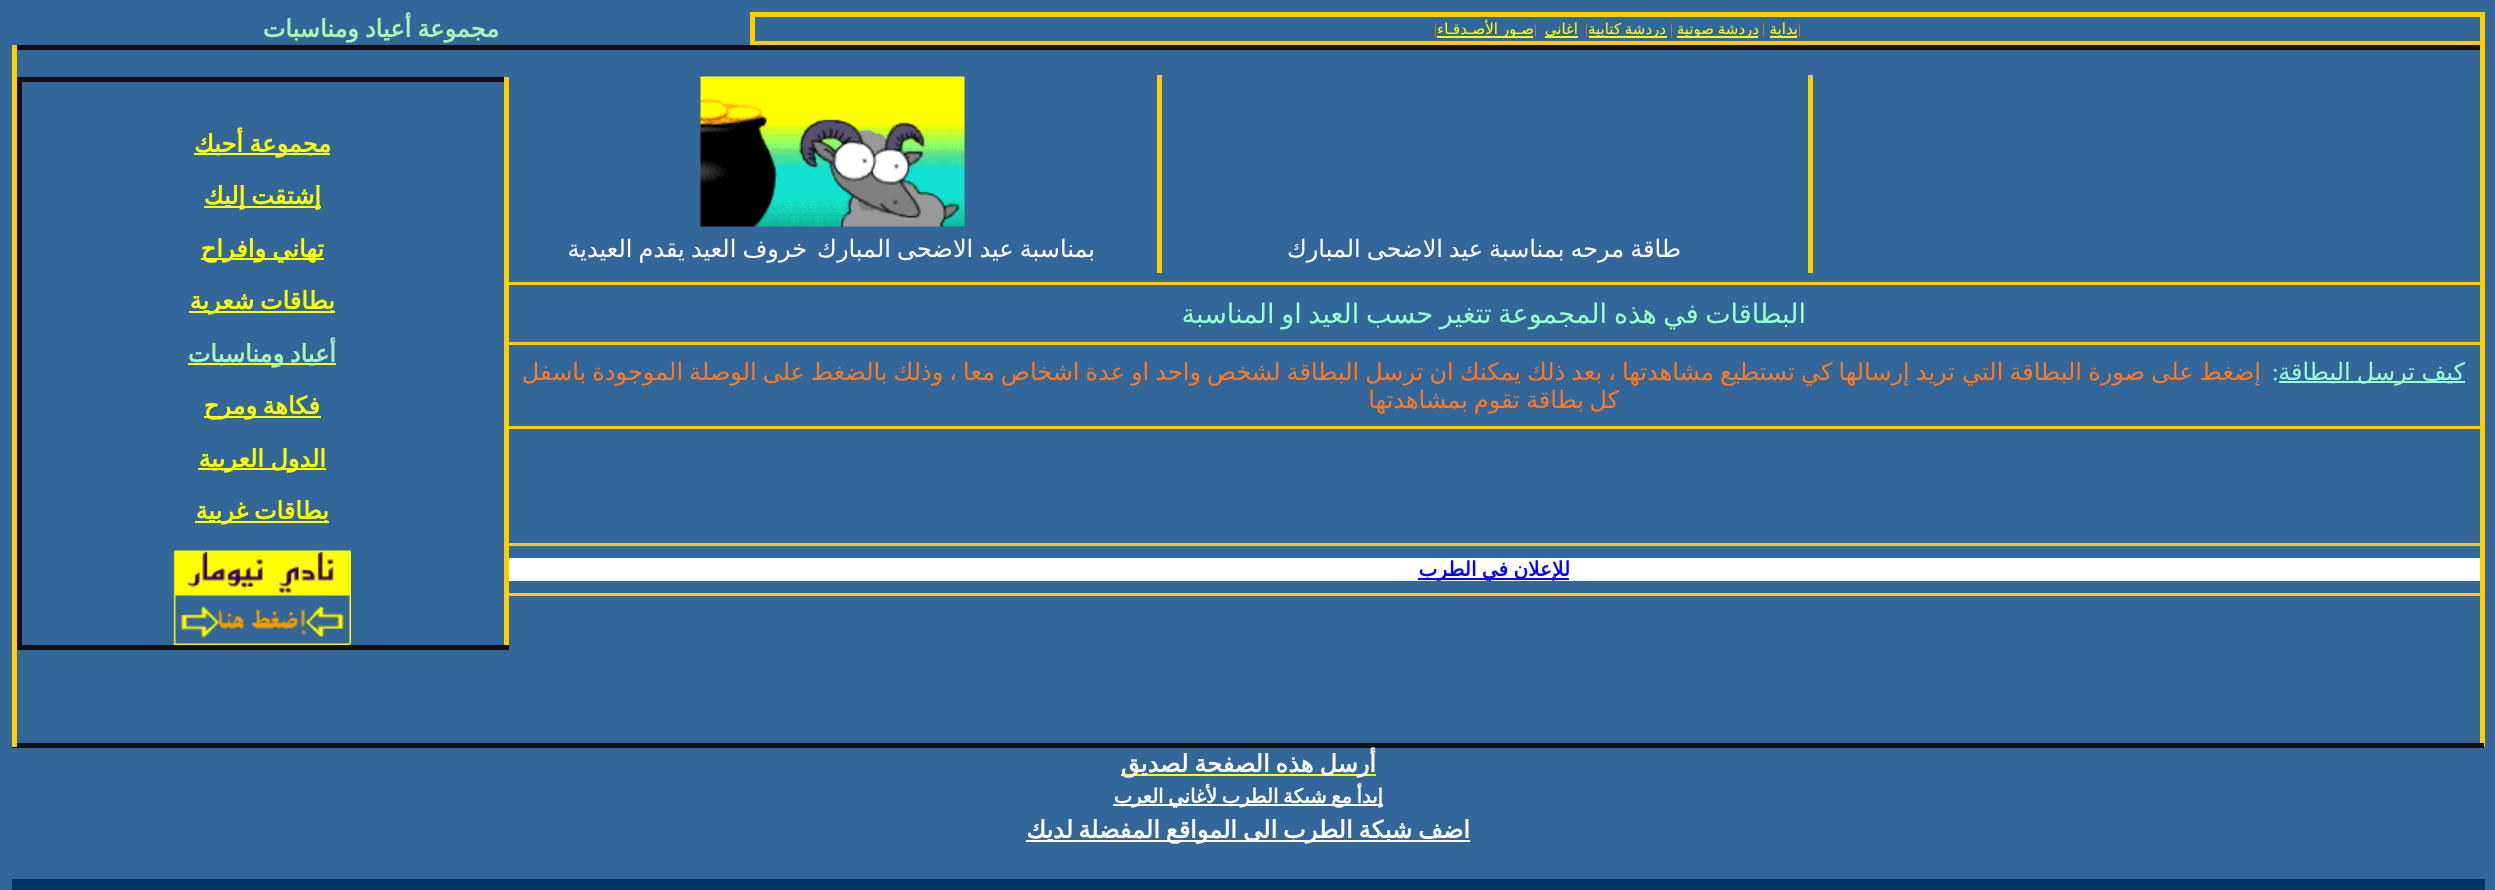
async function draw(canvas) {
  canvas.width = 2495
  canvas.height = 890
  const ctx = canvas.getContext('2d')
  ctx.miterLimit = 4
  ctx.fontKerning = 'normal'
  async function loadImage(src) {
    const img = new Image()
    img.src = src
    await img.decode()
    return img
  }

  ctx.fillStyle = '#369'
  ctx.fillRect(0, 0, 2495, 890)
  ctx.fillStyle = '#fc0'
  ctx.fillRect(750, 12, 1734, 5)
  ctx.fillRect(2480, 12, 5, 33)
  ctx.fillRect(750, 41, 1734, 4)
  ctx.fillRect(750, 12, 5, 33)
  ctx.font = '15px Liberation Serif'
  ctx.fillStyle = '#ff7920'
  ctx.fillText('|', 1798, 34)
  ctx.fillStyle = '#ff0'
  ctx.fillRect(1770, 36, 27, 2)
  ctx.direction = 'rtl'
  ctx.font = '15px DejaVu Sans'
  ctx.fillText('بداية', 1798, 34)
  ctx.direction = 'ltr'
  ctx.font = '15px Liberation Serif'
  ctx.fillStyle = '#ff7920'
  ctx.fillText('|', 1762, 34)
  ctx.fillStyle = '#ff0'
  ctx.fillRect(1677, 36, 81, 2)
  ctx.wordSpacing = '-1px'
  ctx.direction = 'rtl'
  ctx.font = '15px DejaVu Sans'
  ctx.fillText('دردشة صوتية', 1759, 34)
  ctx.wordSpacing = '0px'
  ctx.direction = 'ltr'
  ctx.font = '15px Liberation Serif'
  ctx.fillStyle = '#ff7920'
  ctx.fillText('|', 1670, 34)
  ctx.fillStyle = '#ff0'
  ctx.fillRect(1589, 36, 78, 2)
  ctx.wordSpacing = '-1px'
  ctx.direction = 'rtl'
  ctx.font = '15px DejaVu Sans'
  ctx.fillText('دردشة كتابية', 1666, 34)
  ctx.wordSpacing = '0px'
  ctx.direction = 'ltr'
  ctx.font = '15px Liberation Serif'
  ctx.fillStyle = '#ff7920'
  ctx.fillText('|', 1585, 34)
  ctx.fillStyle = '#ff0'
  ctx.fillRect(1545, 36, 33, 2)
  ctx.direction = 'rtl'
  ctx.font = '15px DejaVu Sans'
  ctx.fillText('اغاني', 1578, 34)
  ctx.direction = 'ltr'
  ctx.font = '15px Liberation Serif'
  ctx.fillStyle = '#ff7920'
  ctx.fillText('|', 1534, 34)
  ctx.fillStyle = '#ff0'
  ctx.fillRect(1437, 36, 96, 2)
  ctx.direction = 'rtl'
  ctx.font = '15px DejaVu Sans'
  ctx.fillText('صـور', 1534, 34)
  ctx.fillText('الأصـدقـاء', 1498, 34)
  ctx.direction = 'ltr'
  ctx.font = '15px Liberation Serif'
  ctx.fillStyle = '#ff7920'
  ctx.fillText('|', 1434, 34)
  ctx.wordSpacing = '-1.6px'
  ctx.direction = 'rtl'
  ctx.font = 'bold 24px DejaVu Sans'
  ctx.fillStyle = '#a7f6b7'
  ctx.fillText('مجموعة أعياد ومناسبات', 499, 37)
  ctx.fillStyle = '#111'
  ctx.fillRect(12, 45, 2472, 5)
  ctx.fillStyle = '#fc0'
  ctx.fillRect(2480, 45, 5, 702)
  ctx.fillStyle = '#111'
  ctx.fillRect(12, 743, 2472, 5)
  ctx.fillStyle = '#fc0'
  ctx.fillRect(12, 45, 5, 702)
  ctx.drawImage(await loadImage('image0.png'), 700, 76, 265, 151)
  ctx.fillRect(1808, 75, 5, 198)
  ctx.fillRect(1157, 75, 5, 198)
  ctx.font = '24px DejaVu Sans'
  ctx.fillStyle = '#fff'
  ctx.fillText('طاقة مرحه بمناسبة عيد', 1681, 257)
  ctx.fillText('الاضحى المبارك', 1443, 257)
  ctx.wordSpacing = '-1.5px'
  ctx.fillText('بمناسبة عيد الاضحى المبارك', 1095, 257)
  ctx.fillText('خروف العيد يقدم العيدية', 807, 257)
  ctx.fillStyle = '#fc0'
  ctx.fillRect(509, 282, 1971, 3)
  ctx.wordSpacing = '-2px'
  ctx.font = '27px DejaVu Sans'
  ctx.fillStyle = '#9fc'
  ctx.fillText('البطاقات في هذه', 1806, 323)
  ctx.fillText('المجموعة تتغير حسب العيد او المناسبة', 1607, 323)
  ctx.fillStyle = '#fc0'
  ctx.fillRect(509, 342, 1971, 3)
  ctx.fillStyle = '#9fc'
  ctx.fillRect(2279, 381, 186, 2)
  ctx.wordSpacing = '0px'
  ctx.font = '24px DejaVu Sans'
  ctx.fillText('كيف', 2465, 380)
  ctx.wordSpacing = '-1.6px'
  ctx.fillText('ترسل البطاقة', 2415, 380)
  ctx.wordSpacing = '0px'
  ctx.direction = 'ltr'
  ctx.font = '24px Liberation Serif'
  ctx.fillText(':', 2272, 380)
  ctx.wordSpacing = '-1.5px'
  ctx.direction = 'rtl'
  ctx.font = '24px DejaVu Sans'
  ctx.fillStyle = '#ff7920'
  ctx.fillText('إضغط على صورة البطاقة التي', 2261, 380)
  ctx.wordSpacing = '-1.6px'
  ctx.fillText('تريد إرسالها كي تستطيع مشاهدتها ، بعد ذلك يمكنك ان ترسل البطاقة لشخص', 1955, 380)
  ctx.fillText('واحد او عدة اشخاص معا ، وذلك بالضغط على الوصلة الموجودة باسفل', 1201, 380)
  ctx.wordSpacing = '0px'
  ctx.fillText('كل', 1619, 408)
  ctx.wordSpacing = '-1.6px'
  ctx.fillText('بطاقة تقوم بمشاهدتها', 1584, 408)
  ctx.fillStyle = '#fc0'
  ctx.fillRect(509, 426, 1971, 3)
  ctx.fillRect(509, 543, 1971, 3)
  ctx.fillStyle = '#fff'
  ctx.fillRect(509, 558, 1971, 23)
  ctx.fillStyle = '#00f'
  ctx.fillRect(1418, 578, 151, 2)
  ctx.wordSpacing = '-1px'
  ctx.font = 'bold 20px DejaVu Sans'
  ctx.fillText('للإعلان في الطرب', 1570, 576)
  ctx.fillStyle = '#fc0'
  ctx.fillRect(509, 593, 1971, 3)
  ctx.fillStyle = '#111'
  ctx.fillRect(17, 77, 492, 5)
  ctx.fillStyle = '#fc0'
  ctx.fillRect(504, 77, 5, 573)
  ctx.fillStyle = '#111'
  ctx.fillRect(17, 645, 492, 5)
  ctx.fillRect(17, 77, 5, 573)
  ctx.fillStyle = '#ff0'
  ctx.fillRect(194, 153, 136, 2)
  ctx.wordSpacing = '0px'
  ctx.font = 'bold 24px DejaVu Sans'
  ctx.fillText('مجموعة', 331, 152)
  ctx.fillText('أحبك', 243, 152)
  ctx.fillRect(204, 206, 117, 2)
  ctx.wordSpacing = '-1.6px'
  ctx.fillText('إشتقت إليك', 321, 204)
  ctx.fillRect(201, 258, 123, 2)
  ctx.wordSpacing = '0px'
  ctx.fillText('تهاني', 324, 257)
  ctx.fillText('وافراح', 266, 257)
  ctx.fillRect(189, 311, 146, 2)
  ctx.fillText('بطاقات', 335, 309)
  ctx.fillText('شعرية', 254, 309)
  ctx.fillRect(188, 363, 148, 2)
  ctx.fillStyle = '#a7f6b7'
  ctx.fillText('أعياد', 336, 362)
  ctx.fillText('ومناسبات', 284, 362)
  ctx.fillStyle = '#ff0'
  ctx.fillText('فكاهة', 320, 414)
  ctx.fillRect(204, 416, 117, 2)
  ctx.fillText('ومرح', 257, 414)
  ctx.fillRect(198, 468, 128, 2)
  ctx.fillText('الدول', 326, 467)
  ctx.fillText('العربية', 264, 467)
  ctx.fillRect(195, 521, 134, 2)
  ctx.fillText('بطاقات', 329, 519)
  ctx.fillText('غربية', 248, 519)
  ctx.drawImage(await loadImage('image1.png'), 172, 550, 179, 95)
  ctx.fillRect(1121, 774, 255, 2)
  ctx.wordSpacing = '-1.6px'
  ctx.fillStyle = '#fff'
  ctx.fillText('أرسل هذه الصفحة لصديق', 1376, 772)
  ctx.fillRect(1113, 804, 270, 2)
  ctx.wordSpacing = '0px'
  ctx.font = 'bold 19.5px DejaVu Sans'
  ctx.fillText('إبدأ', 1383, 803)
  ctx.wordSpacing = '-1.5px'
  ctx.fillText('مع شبكة الطرب لأغاني العرب', 1352, 803)
  ctx.fillRect(1026, 840, 444, 2)
  ctx.wordSpacing = '-1.6px'
  ctx.font = 'bold 24px DejaVu Sans'
  ctx.fillText('اضف شبكة الطرب الى المواقع المفضلة', 1470, 838)
  ctx.wordSpacing = '0px'
  ctx.fillText('لديك', 1073, 838)
  ctx.fillStyle = '#036'
  ctx.fillRect(14, 881, 2469, 9)
  ctx.fillRect(12, 879, 2472, 2)
  ctx.fillRect(2483, 879, 2, 11)
  ctx.fillRect(12, 879, 2, 11)
}

draw(document.querySelector('canvas'))
